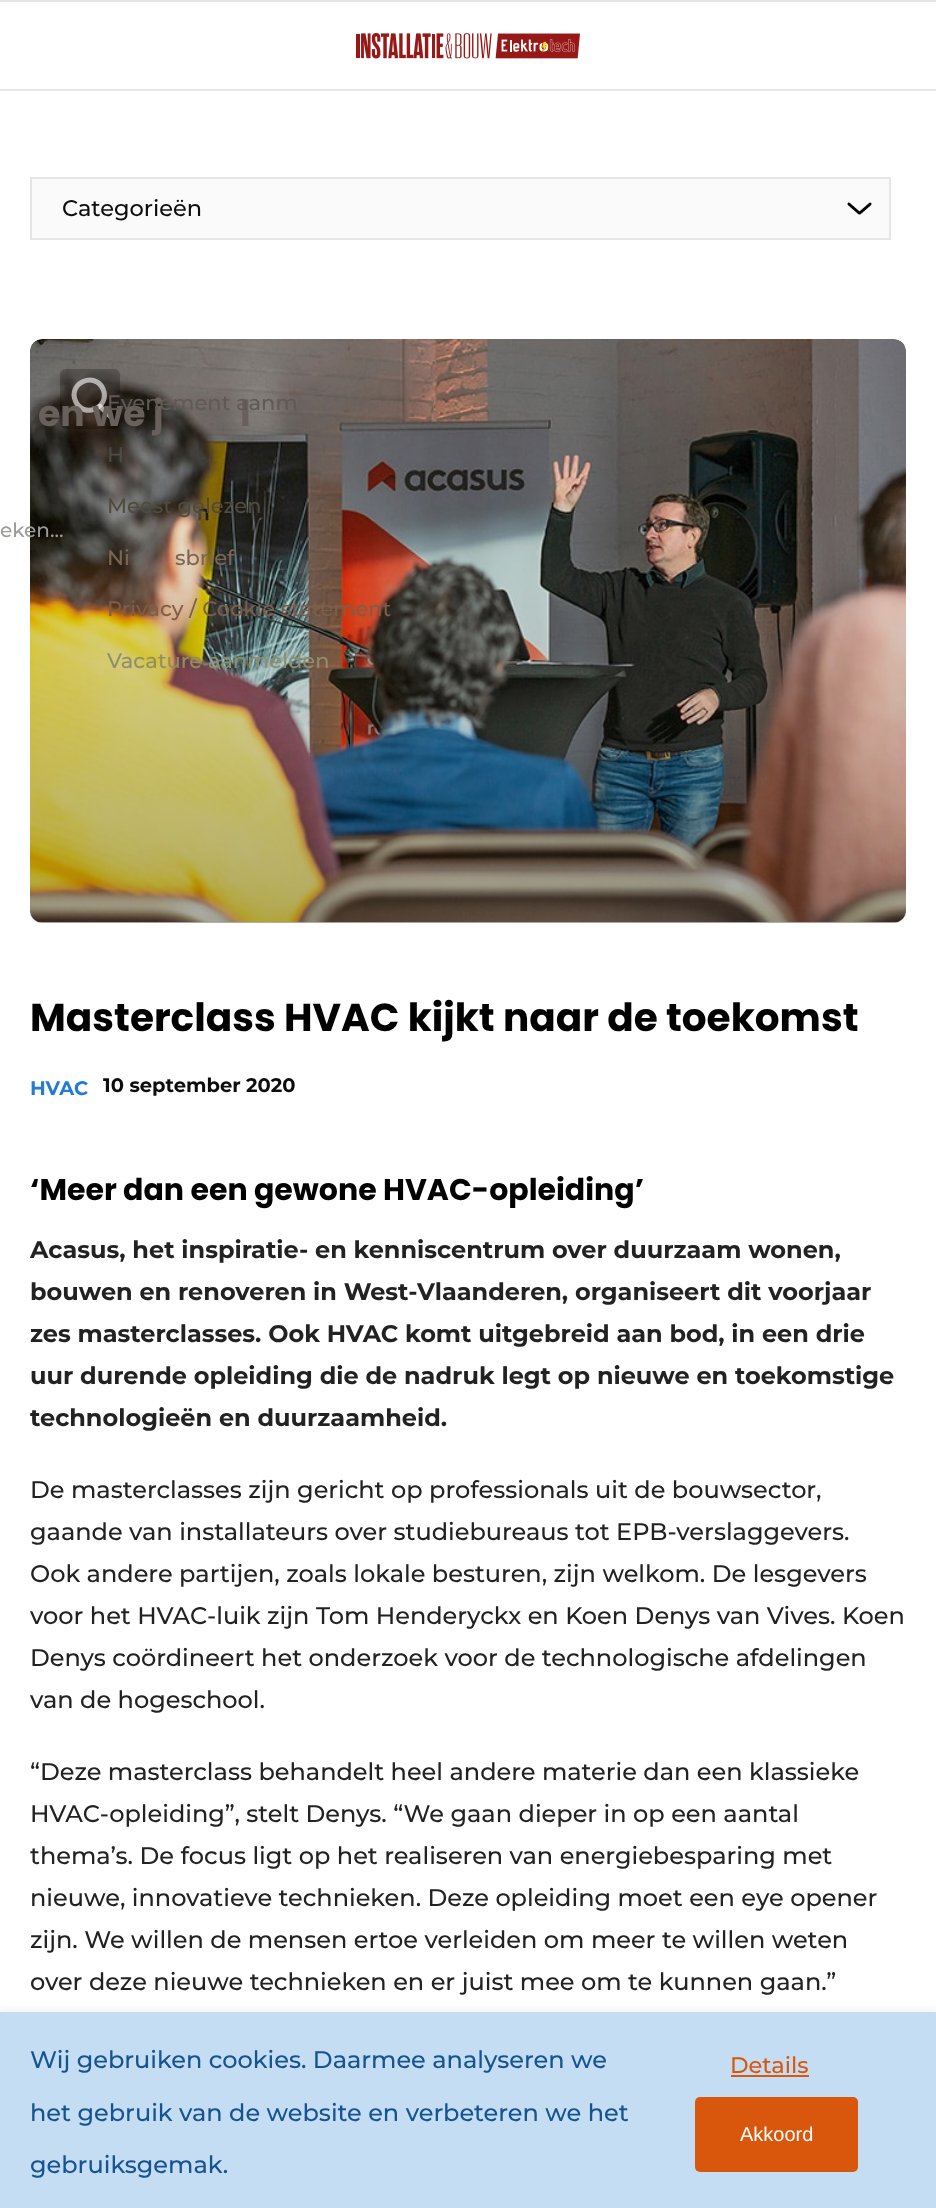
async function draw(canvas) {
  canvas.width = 936
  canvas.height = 2208
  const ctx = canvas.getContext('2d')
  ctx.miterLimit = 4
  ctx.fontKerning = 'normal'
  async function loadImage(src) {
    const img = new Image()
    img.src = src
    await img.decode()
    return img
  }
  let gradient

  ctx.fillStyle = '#fff'
  ctx.fillRect(0, 0, 936, 2208)
  ctx.fillStyle = '#fafafa'
  ctx.fillRect(32, 179, 857, 59)
  ctx.drawImage(await loadImage('image0.png'), 847, 202, 25, 13)
  ctx.strokeStyle = '#e6e6e6'
  ctx.lineWidth = 2
  ctx.strokeRect(31, 178, 859, 61)
  ctx.font = '500 22.5px Montserrat'
  ctx.fillStyle = '#0d0d0d'
  ctx.fillText('Categorieën', 62, 216)
  ctx.fillStyle = '#e6e6e6'
  ctx.fillRect(0, 0, 936, 2)
  ctx.drawImage(await loadImage('image1.png'), 356, 33, 224, 26)
  ctx.fillRect(0, 89, 936, 2)
  ctx.drawImage(await loadImage('image2.png'), 30, 339, 876, 584)
  gradient = ctx.createLinearGradient(468, 339, 468, 923)
  gradient.addColorStop(0, '#00000000')
  gradient.addColorStop(1, '#0000004d')
  ctx.fillStyle = gradient
  ctx.beginPath()
  ctx.roundRect(30, 339, 876, 584, 12)
  ctx.fill()
  ctx.fillStyle = '#0000003d'
  ctx.beginPath()
  ctx.roundRect(60, 369, 60, 60, 6)
  ctx.fill()
  ctx.beginPath()
  ctx.moveTo(75.5, 401)
  ctx.bezierCurveTo(83, 419.5, 111, 407.5, 103, 389)
  ctx.bezierCurveTo(95, 371, 67.5, 383, 75.5, 401)
  ctx.closePath()
  ctx.strokeStyle = '#ffffff99'
  ctx.lineWidth = 5.1
  ctx.lineCap = 'round'
  ctx.lineJoin = 'round'
  ctx.stroke()
  ctx.beginPath()
  ctx.moveTo(100, 406.5)
  ctx.lineTo(110.5, 416.5)
  ctx.stroke()
  ctx.font = 'bold 36px Poppins'
  ctx.fillStyle = '#69605b'
  ctx.fillText('en we j', 38, 426)
  ctx.fillText('l', 240, 426)
  ctx.font = '500 21px Montserrat'
  ctx.fillStyle = '#605955'
  ctx.fillText('Evenement aanm', 107, 410)
  ctx.fillStyle = '#4e4a47'
  ctx.fillText('H', 107, 462)
  ctx.fillStyle = '#514b3b'
  ctx.fillText('Meest gelezen', 107, 513)
  ctx.fillStyle = '#796754'
  ctx.fillText('Ni', 107, 565)
  ctx.fillText('sbrief', 175, 565)
  ctx.fillStyle = '#7e5e47'
  ctx.fillText('Privacy / Cookie statement', 107, 616)
  ctx.fillStyle = '#8f8e6a'
  ctx.fillText('Vacature aanmelden', 107, 668)
  ctx.font = '500 20px Montserrat'
  ctx.fillStyle = '#9c9b99'
  ctx.fillText('eken...', 0, 537)
  ctx.font = 'bold 39px Poppins'
  ctx.fillStyle = '#000'
  ctx.fillText('Masterclass HVAC kijkt naar de toekomst', 30, 1031)
  ctx.font = 'bold 19.5px Montserrat'
  ctx.fillStyle = '#227bd4'
  ctx.fillText('HVAC', 30, 1095)
  ctx.fillStyle = '#0d0d0d'
  ctx.fillText('10 september 2020', 103, 1092)
  ctx.font = 'bold 30px Poppins'
  ctx.fillStyle = '#000'
  ctx.fillText('‘Meer dan een gewone HVAC-opleiding’', 30, 1200)
  ctx.font = 'bold 24px Montserrat'
  ctx.fillStyle = '#222'
  ctx.fillText('Acasus, het inspiratie- en kenniscentrum over duurzaam wonen,', 30, 1258)
  ctx.fillText('bouwen en renoveren in West-Vlaanderen, organiseert dit voorjaar', 30, 1300)
  ctx.fillText('zes masterclasses. Ook HVAC komt uitgebreid aan bod, in een drie', 30, 1342)
  ctx.fillText('uur durende opleiding die de nadruk legt op nieuwe en toekomstige', 30, 1384)
  ctx.fillText('technologieën en duurzaamheid.', 30, 1426)
  ctx.font = '500 24px Montserrat'
  ctx.fillText('De masterclasses zijn gericht op professionals uit de bouwsector,', 30, 1498)
  ctx.fillText('gaande van installateurs over studiebureaus tot EPB-verslaggevers.', 30, 1540)
  ctx.fillText('Ook andere partijen, zoals lokale besturen, zijn welkom. De lesgevers', 30, 1582)
  ctx.fillText('voor het HVAC-luik zijn Tom Henderyckx en Koen Denys van Vives. Koen', 30, 1624)
  ctx.fillText('Denys coördineert het onderzoek voor de technologische afdelingen', 30, 1666)
  ctx.fillText('van de hogeschool.', 30, 1708)
  ctx.fillText('“Deze masterclass behandelt heel andere materie dan een klassieke', 30, 1780)
  ctx.fillText('HVAC-opleiding”, stelt Denys. “We gaan dieper in op een aantal', 30, 1822)
  ctx.fillText('thema’s. De focus ligt op het realiseren van energiebesparing met', 30, 1864)
  ctx.fillText('nieuwe, innovatieve technieken. Deze opleiding moet een eye opener', 30, 1906)
  ctx.fillText('zijn. We willen de mensen ertoe verleiden om meer te willen weten', 30, 1948)
  ctx.fillText('over deze nieuwe technieken en er juist mee om te kunnen gaan.”', 30, 1990)
  ctx.fillStyle = '#0000000f'
  ctx.filter = 'blur(4.5px)'
  ctx.beginPath()
  ctx.rect(-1, 2010, 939, 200)
  ctx.fill()
  ctx.filter = 'none'
  ctx.fillStyle = '#c4ddf2'
  ctx.fillRect(0, 2012, 936, 196)
  ctx.fillStyle = '#155391'
  ctx.fillText('Wij gebruiken cookies. Daarmee analyseren we', 30, 2068)
  ctx.fillText('het gebruik van de website en verbeteren we het', 30, 2121)
  ctx.fillText('gebruiksgemak.', 30, 2173)
  ctx.font = '500 22.5px Montserrat'
  ctx.fillStyle = '#d9570c'
  ctx.fillText('Details', 730, 2073)
  ctx.fillRect(731, 2075, 78, 2)
  ctx.beginPath()
  ctx.roundRect(695, 2097, 163, 75, 5)
  ctx.fill()
  ctx.font = '20px Liberation Sans'
  ctx.fillStyle = '#fff'
  ctx.fillText('Akkoord', 740, 2141)
}

draw(document.querySelector('canvas'))
